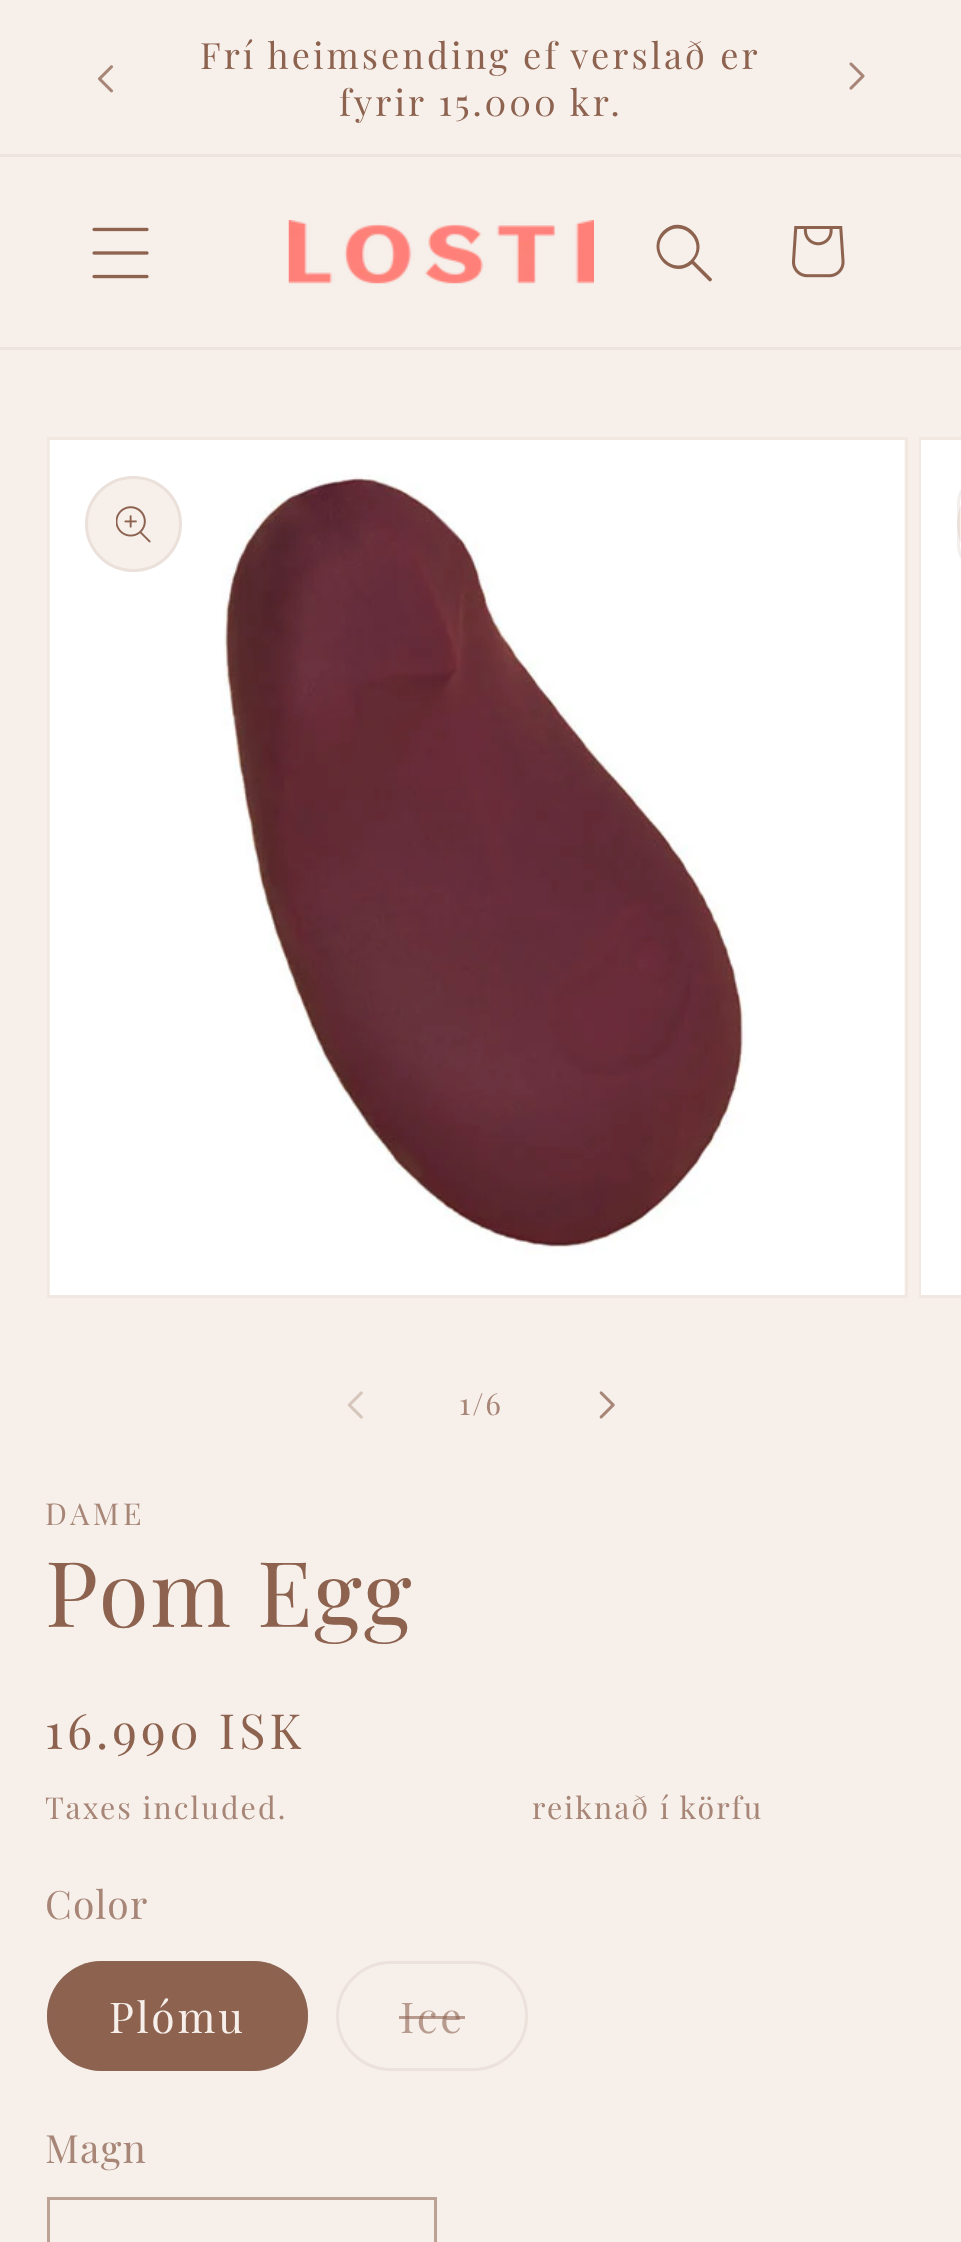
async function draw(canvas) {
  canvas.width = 961
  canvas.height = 2242
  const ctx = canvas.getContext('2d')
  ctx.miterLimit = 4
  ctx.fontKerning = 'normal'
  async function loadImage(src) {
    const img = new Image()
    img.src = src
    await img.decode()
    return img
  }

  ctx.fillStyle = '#f6efea'
  ctx.fillRect(0, 0, 961, 2242)
  ctx.fillStyle = '#eee4de'
  ctx.fillRect(0, 154, 961, 3)
  ctx.drawImage(await loadImage('image0.png'), 98, 65, 15, 28)
  ctx.letterSpacing = '3px'
  ctx.font = '36.25px Playfair Display'
  ctx.fillStyle = '#8d6350'
  ctx.fillText('Frí heimsending ef verslað er', 200, 69)
  ctx.fillText('fyrir 15.000 kr.', 339, 116)
  ctx.drawImage(await loadImage('image1.png'), 849, 62, 16, 28)
  ctx.fillStyle = '#eee4de'
  ctx.fillRect(0, 347, 961, 3)
  ctx.drawImage(await loadImage('image2.png'), 92, 227, 57, 52)
  ctx.drawImage(await loadImage('image3.png'), 288, 220, 306, 64)
  ctx.fillStyle = '#8d6350'
  ctx.beginPath()
  ctx.moveTo(691, 260)
  ctx.bezierCurveTo(674, 277, 648, 251, 665, 234)
  ctx.bezierCurveTo(682, 217, 708, 243, 691, 260)
  ctx.moveTo(692, 264)
  ctx.bezierCurveTo(671, 281, 644, 251, 663, 231)
  ctx.bezierCurveTo(683, 212, 712, 241, 694, 261)
  ctx.lineTo(712, 279)
  ctx.bezierCurveTo(712, 281, 710, 282, 709, 281)
  ctx.closePath()
  ctx.fill('evenodd')
  ctx.drawImage(await loadImage('image4.png'), 792, 226, 53, 52)
  ctx.strokeStyle = '#f1e8e2'
  ctx.lineWidth = 3
  ctx.strokeRect(48.5, 438.5, 858, 858)
  ctx.drawImage(await loadImage('image5.png'), 49, 440, 856, 855)
  ctx.fillStyle = '#f6efea'
  ctx.beginPath()
  ctx.roundRect(85, 476, 97, 96, 48)
  ctx.fill()
  ctx.beginPath()
  ctx.roundRect(86.5, 477.5, 94, 93, 46.5)
  ctx.strokeStyle = '#8d63501a'
  ctx.stroke()
  ctx.drawImage(await loadImage('image6.png'), 116, 506, 35, 37)
  ctx.strokeStyle = '#f1e8e2'
  ctx.strokeRect(920.5, 438.5, 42, 858)
  ctx.fillStyle = '#fff'
  ctx.fillRect(921, 440, 40, 855)
  ctx.fillStyle = '#f6efea'
  ctx.beginPath()
  ctx.moveTo(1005, 476)
  ctx.lineTo(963, 476)
  ctx.lineTo(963, 572)
  ctx.lineTo(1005, 572)
  ctx.bezierCurveTo(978.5, 572, 957, 550.5, 957, 524)
  ctx.bezierCurveTo(957, 497.5, 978.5, 476, 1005, 476)
  ctx.closePath()
  ctx.fill()
  ctx.beginPath()
  ctx.roundRect(958.5, 477.5, 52, 93, 46.5)
  ctx.strokeStyle = '#8d63501a'
  ctx.stroke()
  ctx.drawImage(await loadImage('image7.png'), 347, 1391, 16, 28)
  ctx.letterSpacing = '2.1px'
  ctx.font = '30.25px Playfair Display'
  ctx.fillStyle = '#a78677'
  ctx.fillText('1/6', 459, 1415)
  ctx.drawImage(await loadImage('image8.png'), 599, 1391, 16, 28)
  ctx.letterSpacing = '4px'
  ctx.fillText('DAME', 45, 1525)
  ctx.letterSpacing = '1.75px'
  ctx.font = '90.75px Playfair Display'
  ctx.fillStyle = '#8d6350'
  ctx.fillText('Pom Egg', 45, 1627)
  ctx.letterSpacing = '4px'
  ctx.font = '48.5px Playfair Display'
  ctx.fillText('16.990 ISK', 45, 1749)
  ctx.letterSpacing = '2.1px'
  ctx.font = '30.25px Playfair Display'
  ctx.fillStyle = '#a78677'
  ctx.fillText('Taxes included.', 45, 1819)
  ctx.fillText('reiknað í körfu', 532, 1819)
  ctx.letterSpacing = '1.25px'
  ctx.font = '39px Playfair Display'
  ctx.fillText('Color', 45, 1919)
  ctx.fillStyle = '#8d6350'
  ctx.beginPath()
  ctx.roundRect(47, 1961, 261, 110, 55)
  ctx.fill()
  ctx.beginPath()
  ctx.roundRect(48.5, 1962.5, 258, 107, 53.5)
  ctx.strokeStyle = '#8d63508c'
  ctx.stroke()
  ctx.letterSpacing = '3px'
  ctx.font = '42.5px Playfair Display'
  ctx.fillStyle = '#f6efea'
  ctx.fillText('Plómu', 109, 2033)
  ctx.beginPath()
  ctx.roundRect(337.5, 1962.5, 189, 107, 53.5)
  ctx.strokeStyle = '#ece1db'
  ctx.stroke()
  ctx.fillStyle = '#b79b8e'
  ctx.fillText('Ice', 400, 2033)
  ctx.fillStyle = '#8d635099'
  ctx.fillRect(399, 2016, 66, 3)
  ctx.letterSpacing = '1.25px'
  ctx.font = '39px Playfair Display'
  ctx.fillStyle = '#a78677'
  ctx.fillText('Magn', 45, 2163)
  ctx.strokeStyle = '#bca295'
  ctx.strokeRect(48.5, 2198.5, 387, 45)
}

draw(document.querySelector('canvas'))
